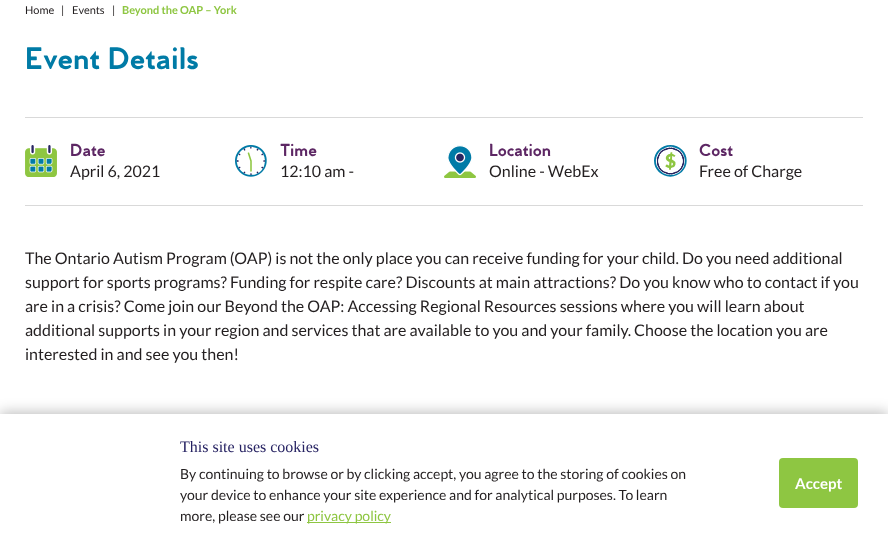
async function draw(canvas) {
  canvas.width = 888
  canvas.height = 551
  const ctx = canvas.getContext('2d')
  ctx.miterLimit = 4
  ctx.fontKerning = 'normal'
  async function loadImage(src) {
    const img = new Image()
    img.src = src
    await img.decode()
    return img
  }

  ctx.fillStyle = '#fff'
  ctx.fillRect(0, 0, 888, 551)
  ctx.font = '11px Lato'
  ctx.fillStyle = '#231f20'
  ctx.fillText('Home', 25, 14)
  ctx.fillText('|', 61, 14)
  ctx.fillText('Events', 72, 14)
  ctx.fillText('|', 112, 14)
  ctx.font = 'bold 11px Lato'
  ctx.fillStyle = '#8ec642'
  ctx.fillText('Beyond the OAP – York', 122, 14)
  ctx.font = 'bold 32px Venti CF'
  ctx.fillStyle = '#007ba6'
  ctx.fillText('Event Details', 25, 69)
  ctx.fillStyle = '#d9d9d9'
  ctx.fillRect(25, 117, 838, 1)
  ctx.fillRect(25, 205, 838, 1)
  ctx.drawImage(await loadImage('image0.png'), 25, 145, 32, 32)
  ctx.font = 'bold 18px Venti CF'
  ctx.fillStyle = '#5d2764'
  ctx.fillText('Date', 70, 156)
  ctx.font = '16px Lato'
  ctx.fillStyle = '#231f20'
  ctx.fillText('April 6, 2021', 70, 177)
  ctx.drawImage(await loadImage('image1.png'), 235, 145, 32, 32)
  ctx.font = 'bold 18px Venti CF'
  ctx.fillStyle = '#5d2764'
  ctx.fillText('Time', 280, 156)
  ctx.font = '16px Lato'
  ctx.fillStyle = '#231f20'
  ctx.fillText('12:10 am -', 280, 177)
  ctx.drawImage(await loadImage('image2.png'), 444, 145, 32, 33)
  ctx.font = 'bold 18px Venti CF'
  ctx.fillStyle = '#5d2764'
  ctx.fillText('Location', 489, 156)
  ctx.font = '16px Lato'
  ctx.fillStyle = '#231f20'
  ctx.fillText('Online - WebEx', 489, 177)
  ctx.drawImage(await loadImage('image3.png'), 654, 145, 33, 32)
  ctx.font = 'bold 18px Venti CF'
  ctx.fillStyle = '#5d2764'
  ctx.fillText('Cost', 699, 156)
  ctx.font = '16px Lato'
  ctx.fillStyle = '#231f20'
  ctx.fillText('Free of Charge', 699, 177)
  ctx.fillText('The Ontario Autism Program (OAP) is not the only place you can receive funding for your child. Do you need additional', 25, 264)
  ctx.fillText('support for sports programs? Funding for respite care? Discounts at main attractions? Do you know who to contact if you', 25, 288)
  ctx.fillText('are in a crisis? Come join our Beyond the OAP: Accessing Regional Resources sessions where you will learn about', 25, 312)
  ctx.fillText('additional supports in your region and services that are available to you and your family. Choose the location you are', 25, 336)
  ctx.fillText('interested in and see you then!', 25, 360)
  ctx.fillStyle = '#00000040'
  ctx.filter = 'blur(6.5px)'
  ctx.beginPath()
  ctx.rect(0, 412, 888, 137)
  ctx.fill()
  ctx.filter = 'none'
  ctx.fillStyle = '#fff'
  ctx.fillRect(0, 414, 888, 137)
  ctx.font = '16px Liberation Serif'
  ctx.fillStyle = '#262262'
  ctx.fillText('This site uses cookies', 180, 452)
  ctx.font = '14px Lato'
  ctx.fillStyle = '#231f20'
  ctx.fillText('By continuing to browse or by clicking accept, you agree to the storing of cookies on', 180, 479)
  ctx.fillText('your device to enhance your site experience and for analytical purposes. To learn', 180, 500)
  ctx.fillText('more, please see our', 180, 521)
  ctx.fillStyle = '#8ec642'
  ctx.fillRect(307, 522, 84, 1)
  ctx.fillText('privacy policy', 307, 521)
  ctx.beginPath()
  ctx.roundRect(779, 458, 79, 50, 4)
  ctx.fill()
  ctx.font = 'bold 15px Lato'
  ctx.fillStyle = '#fff'
  ctx.fillText('Accept', 795, 489)
}

draw(document.querySelector('canvas'))
